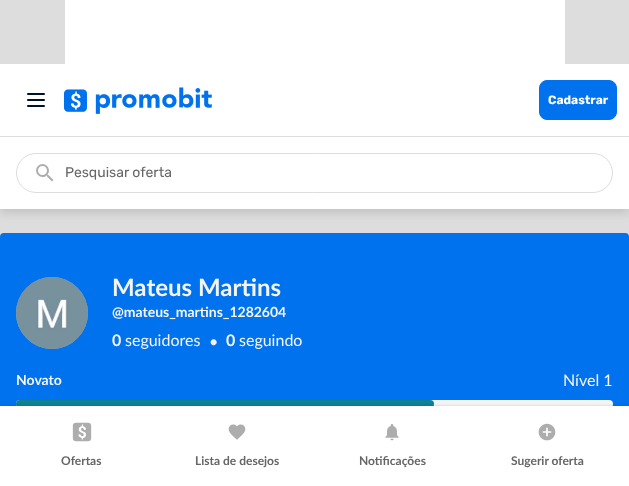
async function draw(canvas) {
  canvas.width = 629
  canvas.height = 486
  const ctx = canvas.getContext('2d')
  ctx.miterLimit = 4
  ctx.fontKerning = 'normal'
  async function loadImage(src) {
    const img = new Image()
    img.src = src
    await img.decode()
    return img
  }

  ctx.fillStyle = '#ddd'
  ctx.fillRect(0, 0, 629, 486)
  ctx.fillStyle = '#fff'
  ctx.fillRect(65, 0, 500, 64)
  ctx.fillStyle = '#57575733'
  ctx.filter = 'blur(5px)'
  ctx.beginPath()
  ctx.rect(0, 141, 629, 72)
  ctx.fill()
  ctx.filter = 'none'
  ctx.fillStyle = '#fff'
  ctx.fillRect(0, 64, 629, 72)
  ctx.fillStyle = '#ddd'
  ctx.fillRect(0, 136, 629, 1)
  ctx.drawImage(await loadImage('image0.png'), 27, 93, 18, 14)
  ctx.drawImage(await loadImage('image1.png'), 64, 87, 148, 27)
  ctx.fillStyle = '#0072ed'
  ctx.beginPath()
  ctx.roundRect(539.5, 80.5, 77, 39, 7.5)
  ctx.fill()
  ctx.strokeStyle = '#0072ed'
  ctx.stroke()
  ctx.font = 'bold 12px Rubik'
  ctx.fillStyle = '#fff'
  ctx.fillText('Cadastrar', 548, 104)
  ctx.fillRect(0, 137, 629, 72)
  ctx.beginPath()
  ctx.roundRect(16.5, 153.5, 596, 39, 19.5)
  ctx.strokeStyle = '#ddd'
  ctx.stroke()
  ctx.drawImage(await loadImage('image2.png'), 36, 164, 18, 18)
  ctx.font = '14px Rubik'
  ctx.fillStyle = '#666'
  ctx.fillText('Pesquisar oferta', 65, 177)
  ctx.fillStyle = '#0072ed'
  ctx.beginPath()
  ctx.roundRect(0, 233, 629, 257, 4)
  ctx.fill()
  ctx.beginPath()
  ctx.arc(52, 313, 35.5, 0, 2 * Math.PI)
  ctx.strokeStyle = '#adadad'
  ctx.stroke()
  ctx.drawImage(await loadImage('image3.png'), 16, 277, 72, 72)
  ctx.font = 'bold 24px Lato'
  ctx.fillStyle = '#f4f4f4'
  ctx.fillText('Mateus Martins', 112, 296)
  ctx.font = 'bold 14px Lato'
  ctx.fillText('@mateus_martins_1282604', 112, 317)
  ctx.font = 'bold 16px Lato'
  ctx.fillText('0', 112, 346)
  ctx.font = '16px Lato'
  ctx.fillText('seguidores', 125, 346)
  ctx.fillText('•', 209, 347)
  ctx.font = 'bold 16px Lato'
  ctx.fillText('0', 226, 346)
  ctx.font = '16px Lato'
  ctx.fillText('seguindo', 239, 346)
  ctx.font = 'bold 14px Lato'
  ctx.fillText('Novato', 16, 385)
  ctx.font = '16px Lato'
  ctx.fillText('Nível 1', 563, 386)
  ctx.beginPath()
  ctx.roundRect(16, 400, 597, 8, 4)
  ctx.fill()
  ctx.fillStyle = '#0e8195'
  ctx.beginPath()
  ctx.roundRect(16, 400, 418, 8, 4)
  ctx.fill()
  ctx.fillStyle = '#12121280'
  ctx.filter = 'blur(2px)'
  ctx.beginPath()
  ctx.rect(0, 408, 629, 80)
  ctx.fill()
  ctx.filter = 'none'
  ctx.fillStyle = '#fff'
  ctx.fillRect(0, 406, 629, 80)
  ctx.drawImage(await loadImage('image4.png'), 72, 422, 20, 20)
  ctx.font = 'bold 12px Lato'
  ctx.fillStyle = '#666'
  ctx.fillText('Ofertas', 61, 465)
  ctx.drawImage(await loadImage('image5.png'), 228, 424, 18, 16)
  ctx.fillText('Lista de desejos', 195, 465)
  ctx.drawImage(await loadImage('image6.png'), 385, 424, 14, 17)
  ctx.fillText('Notificações', 359, 465)
  ctx.drawImage(await loadImage('image7.png'), 538, 423, 18, 18)
  ctx.fillText('Sugerir oferta', 511, 465)
}

draw(document.querySelector('canvas'))
